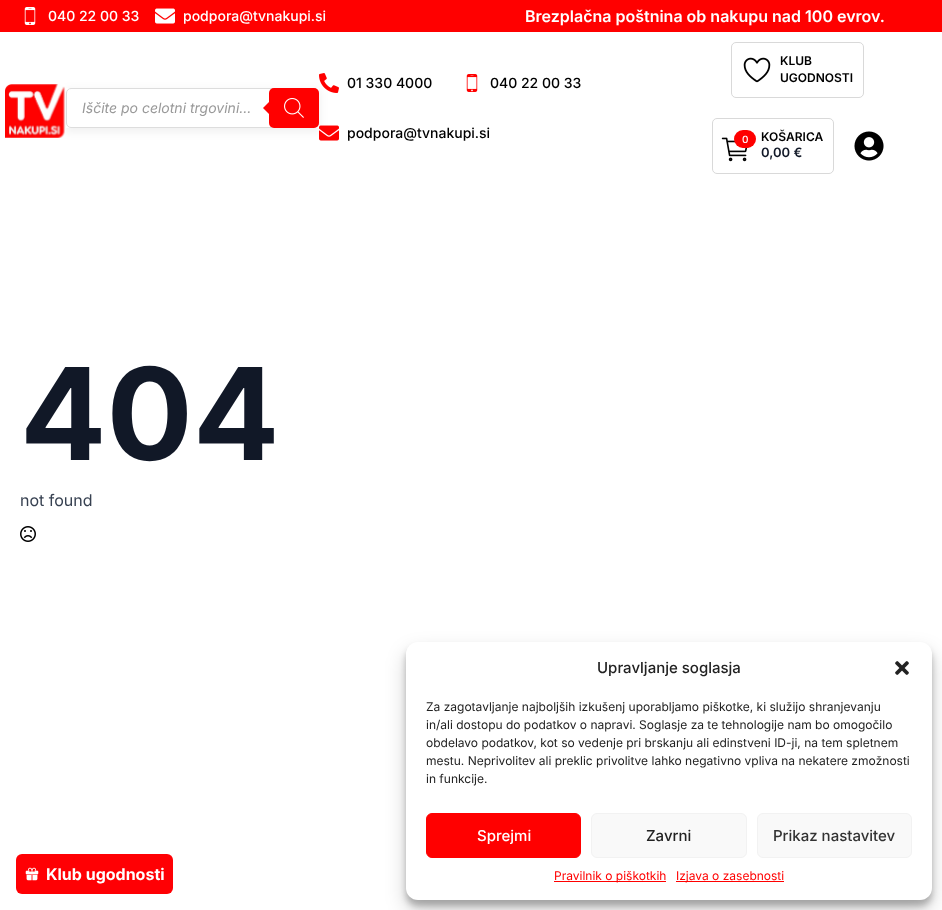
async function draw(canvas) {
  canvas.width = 942
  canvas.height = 910
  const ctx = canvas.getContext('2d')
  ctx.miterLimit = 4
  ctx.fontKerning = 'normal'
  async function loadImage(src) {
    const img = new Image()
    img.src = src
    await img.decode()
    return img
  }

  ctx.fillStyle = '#fff'
  ctx.fillRect(0, 0, 942, 910)
  ctx.fillStyle = '#f00'
  ctx.fillRect(0, 0, 942, 32)
  ctx.drawImage(await loadImage('image0.png'), 24, 7, 12, 18)
  ctx.font = '500 14px Inter'
  ctx.fillStyle = '#fff'
  ctx.fillText('040 22 00 33', 48, 21)
  ctx.drawImage(await loadImage('image1.png'), 155, 8, 20, 16)
  ctx.fillText('podpora@tvnakupi.si', 183, 21)
  ctx.font = '600 16px Inter'
  ctx.fillText('Brezplačna poštnina ob nakupu nad 100 evrov.', 525, 22)
  ctx.save()
  ctx.beginPath()
  ctx.moveTo(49, 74)
  ctx.lineTo(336, 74)
  ctx.lineTo(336, 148)
  ctx.lineTo(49, 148)
  ctx.closePath()
  ctx.moveTo(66, 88)
  ctx.lineTo(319, 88)
  ctx.lineTo(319, 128)
  ctx.lineTo(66, 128)
  ctx.closePath()
  ctx.clip('evenodd')
  ctx.fillStyle = '#0000000f'
  ctx.filter = 'blur(5px)'
  ctx.beginPath()
  ctx.rect(65, 90, 255, 42)
  ctx.fill()
  ctx.filter = 'none'
  ctx.restore()
  ctx.drawImage(await loadImage('image2.png'), 5, 84, 60, 54)
  ctx.beginPath()
  ctx.roundRect(66.5, 88.5, 252, 39, 4.5)
  ctx.strokeStyle = '#ddd'
  ctx.stroke()
  ctx.font = 'italic 14px Inter'
  ctx.fillStyle = '#999'
  ctx.fillText('Iščite po celotni trgovini...', 82, 113)
  ctx.fillStyle = '#f00'
  ctx.beginPath()
  ctx.roundRect(269, 88, 50, 40, 5)
  ctx.fill()
  ctx.beginPath()
  ctx.moveTo(271, 100)
  ctx.lineTo(271, 116)
  ctx.lineTo(263, 108)
  ctx.closePath()
  ctx.fill()
  ctx.drawImage(await loadImage('image3.png'), 284, 98, 20, 20)
  ctx.drawImage(await loadImage('image4.png'), 319, 73, 20, 20)
  ctx.font = '500 14px Inter'
  ctx.fillStyle = '#000'
  ctx.fillText('01 330 4000', 347, 88)
  ctx.drawImage(await loadImage('image5.png'), 466, 74, 12, 18)
  ctx.fillText('040 22 00 33', 490, 88)
  ctx.drawImage(await loadImage('image6.png'), 319, 125, 20, 16)
  ctx.fillText('podpora@tvnakupi.si', 347, 138)
  ctx.beginPath()
  ctx.roundRect(731.5, 42.5, 132, 55, 4.5)
  ctx.strokeStyle = '#d9d9d9'
  ctx.stroke()
  ctx.drawImage(await loadImage('image7.png'), 743, 57, 28, 26)
  ctx.font = '600 12px Inter'
  ctx.fillText('KLUB', 780, 65)
  ctx.fillText('UGODNOSTI', 780, 82)
  ctx.beginPath()
  ctx.roundRect(712.5, 118.5, 121, 55, 4.5)
  ctx.stroke()
  ctx.fillText('KOŠARICA', 761, 141)
  ctx.drawImage(await loadImage('image8.png'), 721, 137, 29, 25)
  ctx.fillStyle = '#f00'
  ctx.beginPath()
  ctx.roundRect(734, 130, 22, 18, 9)
  ctx.fill()
  ctx.font = '500 10px Inter'
  ctx.fillStyle = '#fff'
  ctx.fillText('0', 742, 143)
  ctx.font = '600 13px Inter'
  ctx.fillStyle = '#111827'
  ctx.fillText('0,00 €', 761, 157)
  ctx.drawImage(await loadImage('image9.png'), 854, 131, 30, 30)
  ctx.font = 'bold 128px Inter'
  ctx.fillText('404', 20, 460)
  ctx.font = '16px Inter'
  ctx.fillStyle = '#374151'
  ctx.fillText('not found', 20, 506)
  ctx.drawImage(await loadImage('image10.png'), 20, 526, 16, 16)
  ctx.fillStyle = '#ff0004'
  ctx.beginPath()
  ctx.roundRect(16, 854, 157, 40, 6)
  ctx.fill()
  ctx.drawImage(await loadImage('image11.png'), 25, 867, 14, 14)
  ctx.font = 'bold 16px Inter'
  ctx.fillStyle = '#fff'
  ctx.fillText('Klub ugodnosti', 46, 880)
  ctx.fillStyle = '#0000003b'
  ctx.filter = 'blur(3px)'
  ctx.beginPath()
  ctx.roundRect(406, 648, 526, 258, 12)
  ctx.fill()
  ctx.filter = 'none'
  ctx.fillStyle = '#00000030'
  ctx.filter = 'blur(10px)'
  ctx.beginPath()
  ctx.roundRect(406, 652, 526, 258, 12)
  ctx.fill()
  ctx.filter = 'none'
  ctx.fillStyle = '#fff'
  ctx.beginPath()
  ctx.roundRect(406, 642, 526, 258, 12)
  ctx.fill()
  ctx.font = '500 15px Inter'
  ctx.fillStyle = '#222'
  ctx.fillText('Upravljanje soglasja', 597, 673)
  ctx.drawImage(await loadImage('image12.png'), 895, 661, 14, 14)
  ctx.font = '12px Inter'
  ctx.fillText('Za zagotavljanje najboljših izkušenj uporabljamo piškotke, ki služijo shranjevanju', 426, 711)
  ctx.fillText('in/ali dostopu do podatkov o napravi. Soglasje za te tehnologije nam bo omogočilo', 426, 729)
  ctx.fillText('obdelavo podatkov, kot so vedenje pri brskanju ali edinstveni ID-ji, na tem spletnem', 426, 747)
  ctx.fillText('mestu. Neprivolitev ali preklic privolitve lahko negativno vpliva na nekatere zmožnosti', 426, 765)
  ctx.fillText('in funkcije.', 426, 783)
  ctx.fillStyle = '#f00'
  ctx.beginPath()
  ctx.roundRect(426.5, 813.5, 154, 44, 5.5)
  ctx.fill()
  ctx.strokeStyle = '#f00'
  ctx.stroke()
  ctx.font = '500 15px Inter'
  ctx.fillStyle = '#fff'
  ctx.fillText('Sprejmi', 477, 841)
  ctx.fillStyle = '#f9f9f9'
  ctx.beginPath()
  ctx.roundRect(591.5, 813.5, 155, 44, 5.5)
  ctx.fill()
  ctx.strokeStyle = '#f2f2f2'
  ctx.stroke()
  ctx.fillStyle = '#222'
  ctx.fillText('Zavrni', 646, 841)
  ctx.fillStyle = '#f9f9f9'
  ctx.beginPath()
  ctx.roundRect(757.5, 813.5, 154, 44, 5.5)
  ctx.fill()
  ctx.stroke()
  ctx.fillStyle = '#333'
  ctx.fillText('Prikaz nastavitev', 773, 841)
  ctx.fillStyle = '#f00'
  ctx.fillRect(554, 881, 112, 1)
  ctx.font = '12px Inter'
  ctx.fillText('Pravilnik o piškotkih', 554, 880)
  ctx.fillRect(676, 881, 108, 1)
  ctx.fillText('Izjava o zasebnosti', 676, 880)
}

draw(document.querySelector('canvas'))
